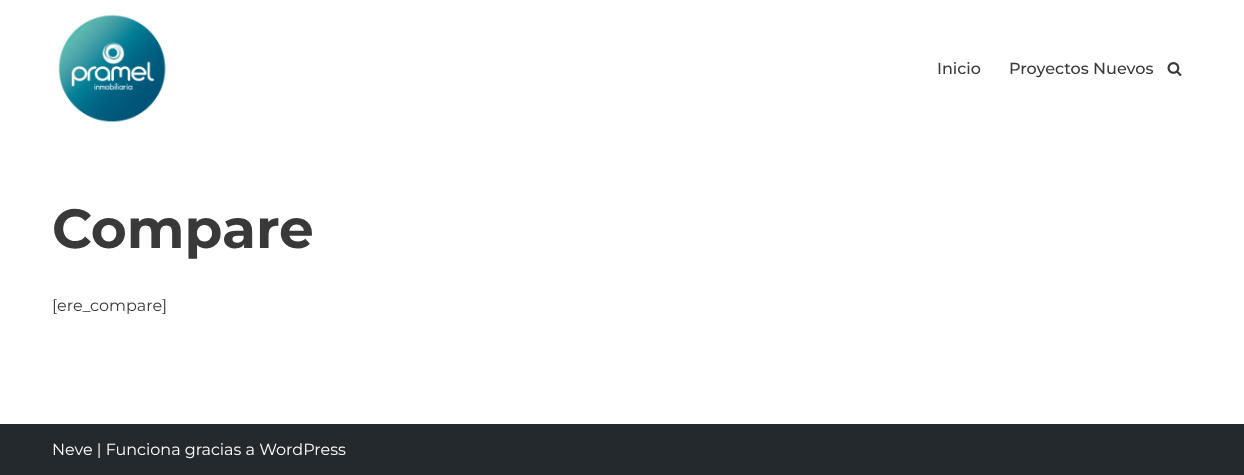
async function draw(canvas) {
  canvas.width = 1244
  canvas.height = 475
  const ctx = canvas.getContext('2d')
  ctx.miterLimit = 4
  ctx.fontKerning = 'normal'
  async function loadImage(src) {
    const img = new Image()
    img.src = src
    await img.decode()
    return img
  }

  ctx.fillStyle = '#fff'
  ctx.fillRect(0, 0, 1244, 475)
  ctx.drawImage(await loadImage('image0.png'), 58, 14, 108, 108)
  ctx.font = '500 16px Montserrat'
  ctx.fillStyle = '#393939'
  ctx.fillText('Inicio', 937, 74)
  ctx.fillText('Proyectos Nuevos', 1009, 74)
  ctx.drawImage(await loadImage('image1.png'), 1167, 62, 15, 14)
  ctx.font = 'bold 55px Montserrat'
  ctx.fillText('Compare', 52, 248)
  ctx.font = '16px Montserrat'
  ctx.fillText('[ere_compare]', 52, 311)
  ctx.fillStyle = '#24292e'
  ctx.fillRect(0, 424, 1244, 51)
  ctx.fillStyle = '#fff'
  ctx.fillText('Neve | Funciona gracias a WordPress', 52, 455)
}

draw(document.querySelector('canvas'))
